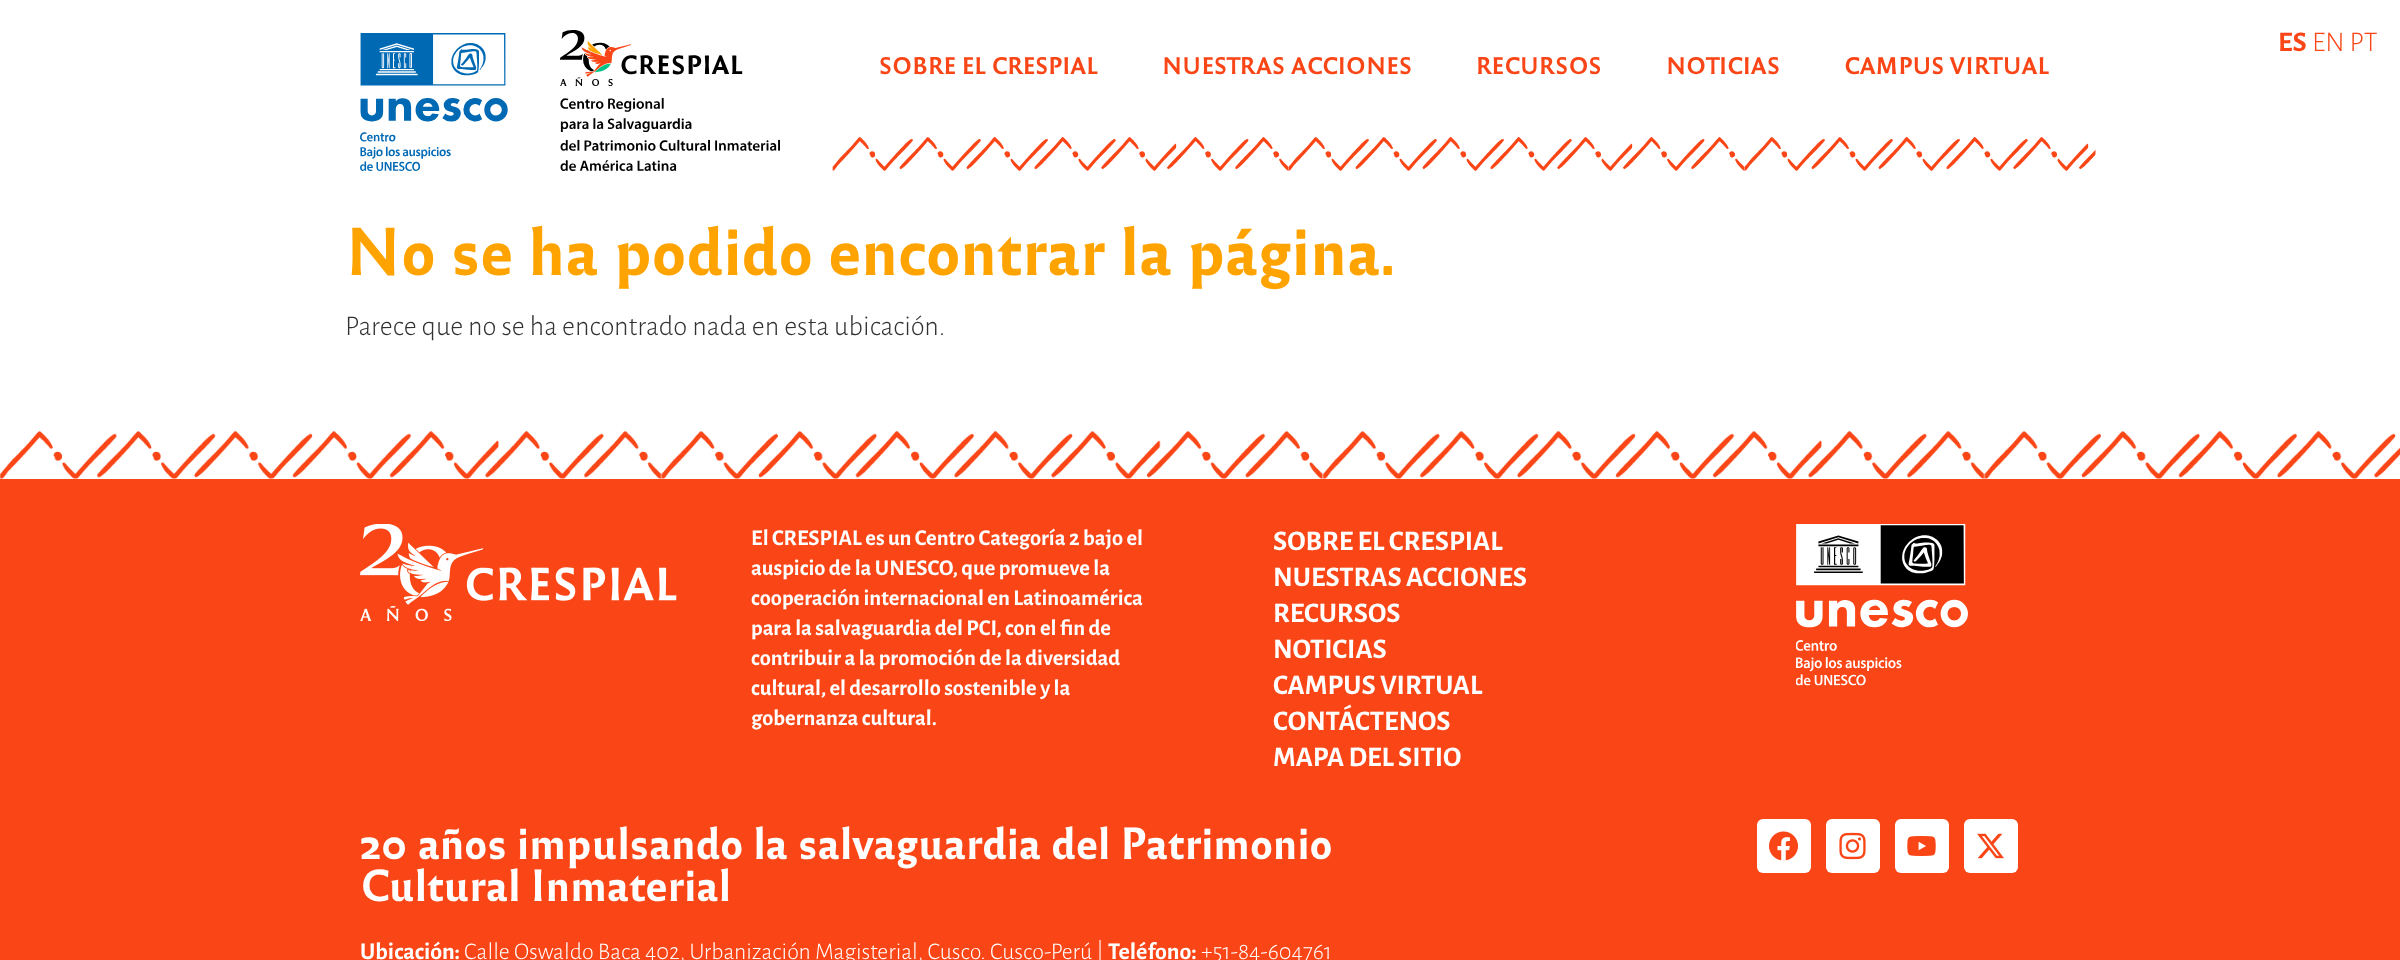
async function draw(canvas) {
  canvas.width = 2400
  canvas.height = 960
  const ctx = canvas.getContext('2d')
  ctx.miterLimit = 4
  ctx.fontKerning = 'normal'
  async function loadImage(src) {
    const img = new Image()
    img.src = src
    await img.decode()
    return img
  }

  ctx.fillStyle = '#fff'
  ctx.fillRect(0, 0, 2400, 960)
  ctx.font = 'bold 28.5px Alegreya Sans'
  ctx.fillStyle = '#fa4616'
  ctx.fillText('ES', 2278, 51)
  ctx.font = '300 28.5px Alegreya Sans'
  ctx.fillText('EN PT', 2312, 51)
  ctx.drawImage(await loadImage('image0.png'), 360, 30, 420, 141)
  ctx.font = 'bold 22.5px "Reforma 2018"'
  ctx.fillText('SOBRE EL CRESPIAL', 879, 74)
  ctx.fillText('NUESTRAS ACCIONES', 1162, 74)
  ctx.fillText('RECURSOS', 1476, 74)
  ctx.fillText('NOTICIAS', 1666, 74)
  ctx.fillText('CAMPUS VIRTUAL', 1844, 74)
  ctx.drawImage(await loadImage('image1.png'), 832, 136, 1264, 35)
  ctx.font = 'bold 63px "Reforma 2018"'
  ctx.fillStyle = '#ffa300'
  ctx.fillText('No se ha podido encontrar la página.', 345, 275)
  ctx.font = '300 28.5px Alegreya Sans'
  ctx.fillStyle = '#333'
  ctx.fillText('Parece que no se ha encontrado nada en esta ubicación.', 345, 335)
  ctx.drawImage(await loadImage('image2.png'), 0, 430, 2400, 49)
  ctx.fillStyle = '#fa4616'
  ctx.fillRect(0, 479, 2400, 481)
  ctx.drawImage(await loadImage('image3.png'), 360, 524, 317, 97)
  ctx.font = 'bold 22.5px Alegreya Sans'
  ctx.fillStyle = '#fff'
  ctx.fillText('El CRESPIAL es un Centro Categoría 2 bajo el', 751, 545)
  ctx.fillText('auspicio de la UNESCO, que promueve la', 751, 575)
  ctx.fillText('cooperación internacional en Latinoamérica', 751, 605)
  ctx.fillText('para la salvaguardia del PCI, con el fin de', 751, 635)
  ctx.fillText('contribuir a la promoción de la diversidad', 751, 665)
  ctx.fillText('cultural, el desarrollo sostenible y la', 751, 695)
  ctx.fillText('gobernanza cultural.', 751, 725)
  ctx.font = 'bold 28.5px Alegreya Sans'
  ctx.fillText('SOBRE EL CRESPIAL', 1273, 550)
  ctx.fillText('NUESTRAS ACCIONES', 1273, 586)
  ctx.fillText('RECURSOS', 1273, 622)
  ctx.fillText('NOTICIAS', 1273, 658)
  ctx.fillText('CAMPUS VIRTUAL', 1273, 694)
  ctx.fillText('CONTÁCTENOS', 1273, 730)
  ctx.fillText('MAPA DEL SITIO', 1273, 766)
  ctx.drawImage(await loadImage('image4.png'), 1796, 524, 172, 162)
  ctx.font = 'bold 42px "Reforma 2018"'
  ctx.fillText('20 años impulsando la salvaguardia del Patrimonio', 360, 859)
  ctx.fillText('Cultural Inmaterial', 360, 901)
  ctx.font = 'bold 24px Alegreya Sans'
  ctx.fillText('Ubicación:', 360, 959)
  ctx.font = '300 24px Alegreya Sans'
  ctx.fillText('Calle Oswaldo Baca 402, Urbanización Magisterial, Cusco. Cusco-Perú |', 464, 959)
  ctx.font = 'bold 24px Alegreya Sans'
  ctx.fillText('Teléfono:', 1108, 959)
  ctx.font = '300 24px Alegreya Sans'
  ctx.fillText('+51-84-604761', 1201, 959)
  ctx.beginPath()
  ctx.roundRect(1757, 819, 54, 54, 6)
  ctx.fill()
  ctx.drawImage(await loadImage('image5.png'), 1769, 831, 29, 30)
  ctx.beginPath()
  ctx.roundRect(1826, 819, 54, 54, 6)
  ctx.fill()
  ctx.drawImage(await loadImage('image6.png'), 1839, 832, 27, 28)
  ctx.beginPath()
  ctx.roundRect(1895, 819, 54, 54, 6)
  ctx.fill()
  ctx.drawImage(await loadImage('image7.png'), 1907, 836, 29, 20)
  ctx.beginPath()
  ctx.roundRect(1964, 819, 54, 54, 6)
  ctx.fill()
  ctx.drawImage(await loadImage('image8.png'), 1977, 833, 27, 26)
}

draw(document.querySelector('canvas'))
